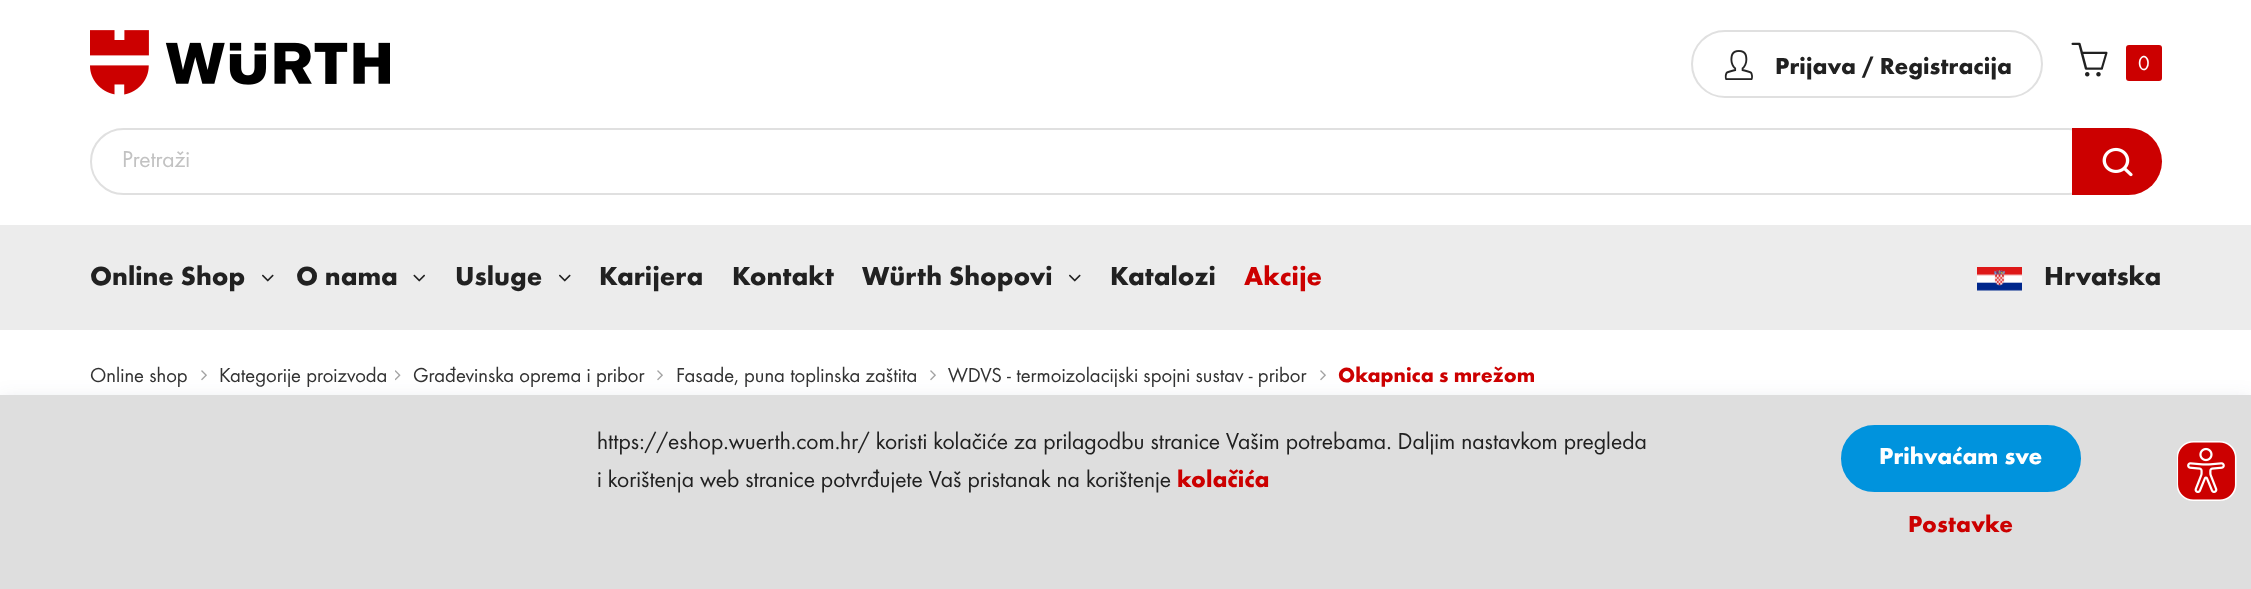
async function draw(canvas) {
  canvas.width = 2251
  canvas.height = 589
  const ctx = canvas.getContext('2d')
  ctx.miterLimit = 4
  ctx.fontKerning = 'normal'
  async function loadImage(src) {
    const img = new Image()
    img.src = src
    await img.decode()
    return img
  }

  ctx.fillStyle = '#fff'
  ctx.fillRect(0, 0, 2251, 589)
  ctx.drawImage(await loadImage('image0.png'), 90, 30, 300, 65)
  ctx.beginPath()
  ctx.roundRect(1692, 31, 350, 66, 33)
  ctx.strokeStyle = '#e0e0e0'
  ctx.lineWidth = 2
  ctx.stroke()
  ctx.drawImage(await loadImage('image1.png'), 1724, 50, 29, 30)
  ctx.font = 'bold 24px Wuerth'
  ctx.fillStyle = '#212121'
  ctx.fillText('Prijava / Registracija', 1775, 74)
  ctx.drawImage(await loadImage('image2.png'), 2071, 42, 37, 35)
  ctx.fillStyle = '#c00'
  ctx.beginPath()
  ctx.roundRect(2126, 45, 36, 36, 3)
  ctx.fill()
  ctx.font = '21px Wuerth'
  ctx.fillStyle = '#fff'
  ctx.fillText('0', 2138, 70)
  ctx.beginPath()
  ctx.roundRect(91, 129, 2010, 65, 32.5)
  ctx.stroke()
  ctx.font = '24px Wuerth'
  ctx.fillStyle = '#c2c2c2'
  ctx.fillText('Pretraži', 122, 167)
  ctx.fillStyle = '#c00'
  ctx.beginPath()
  ctx.roundRect(2072, 128, 90, 67, [0, 33.5, 33.5, 0])
  ctx.fill()
  ctx.drawImage(await loadImage('image3.png'), 2102, 147, 31, 30)
  ctx.fillStyle = '#ececec'
  ctx.fillRect(0, 225, 2251, 105)
  ctx.font = 'bold 27px Wuerth'
  ctx.fillStyle = '#212121'
  ctx.fillText('Online Shop', 90, 285)
  ctx.drawImage(await loadImage('image4.png'), 262, 274, 12, 8)
  ctx.fillText('O nama', 296, 285)
  ctx.drawImage(await loadImage('image5.png'), 413, 274, 12, 8)
  ctx.fillText('Usluge', 455, 285)
  ctx.drawImage(await loadImage('image4.png'), 559, 274, 12, 8)
  ctx.fillText('Karijera', 599, 285)
  ctx.fillText('Kontakt', 732, 285)
  ctx.fillText('Würth Shopovi', 862, 285)
  ctx.drawImage(await loadImage('image4.png'), 1069, 274, 12, 8)
  ctx.fillText('Katalozi', 1110, 285)
  ctx.fillStyle = '#c00'
  ctx.fillText('Akcije', 1244, 285)
  ctx.drawImage(await loadImage('image6.png'), 1977, 267, 45, 24)
  ctx.fillStyle = '#212121'
  ctx.fillText('Hrvatska', 2044, 285)
  ctx.font = '21px Wuerth'
  ctx.fillStyle = '#333'
  ctx.fillText('Online shop', 90, 382)
  ctx.drawImage(await loadImage('image7.png'), 201, 370, 6, 11)
  ctx.fillText('Kategorije proizvoda', 219, 382)
  ctx.drawImage(await loadImage('image8.png'), 395, 370, 6, 11)
  ctx.fillText('Građevinska oprema i pribor', 413, 382)
  ctx.drawImage(await loadImage('image7.png'), 657, 370, 6, 11)
  ctx.fillText('Fasade, puna toplinska zaštita', 676, 382)
  ctx.drawImage(await loadImage('image7.png'), 930, 370, 6, 11)
  ctx.fillText('WDVS - termoizolacijski spojni sustav - pribor', 948, 382)
  ctx.drawImage(await loadImage('image7.png'), 1320, 370, 6, 11)
  ctx.font = 'bold 21px Wuerth'
  ctx.fillStyle = '#c00'
  ctx.fillText('Okapnica s mrežom', 1338, 382)
  ctx.fillStyle = '#252c6126'
  ctx.filter = 'blur(11px)'
  ctx.beginPath()
  ctx.rect(0, 402, 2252, 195)
  ctx.fill()
  ctx.filter = 'none'
  ctx.fillStyle = '#dedede'
  ctx.fillRect(0, 395, 2251, 194)
  ctx.font = '24px Wuerth'
  ctx.fillStyle = '#212121'
  ctx.fillText('https://eshop.wuerth.com.hr/ koristi kolačiće za prilagodbu stranice Vašim potrebama. Daljim nastavkom pregleda', 597, 449)
  ctx.fillText('i korištenja web stranice potvrđujete Vaš pristanak na korištenje', 597, 487)
  ctx.font = 'bold 24px Wuerth'
  ctx.fillStyle = '#c00'
  ctx.fillText('kolačića', 1177, 487)
  ctx.fillStyle = '#0093dd'
  ctx.beginPath()
  ctx.roundRect(1842, 426, 238, 65, 32.5)
  ctx.fill()
  ctx.strokeStyle = '#0093dd'
  ctx.stroke()
  ctx.fillStyle = '#fff'
  ctx.fillText('Prihvaćam sve', 1879, 464)
  ctx.fillStyle = '#c00'
  ctx.fillText('Postavke', 1908, 532)
  ctx.drawImage(await loadImage('image9.png'), 2177, 441, 60, 60)
}

draw(document.querySelector('canvas'))
